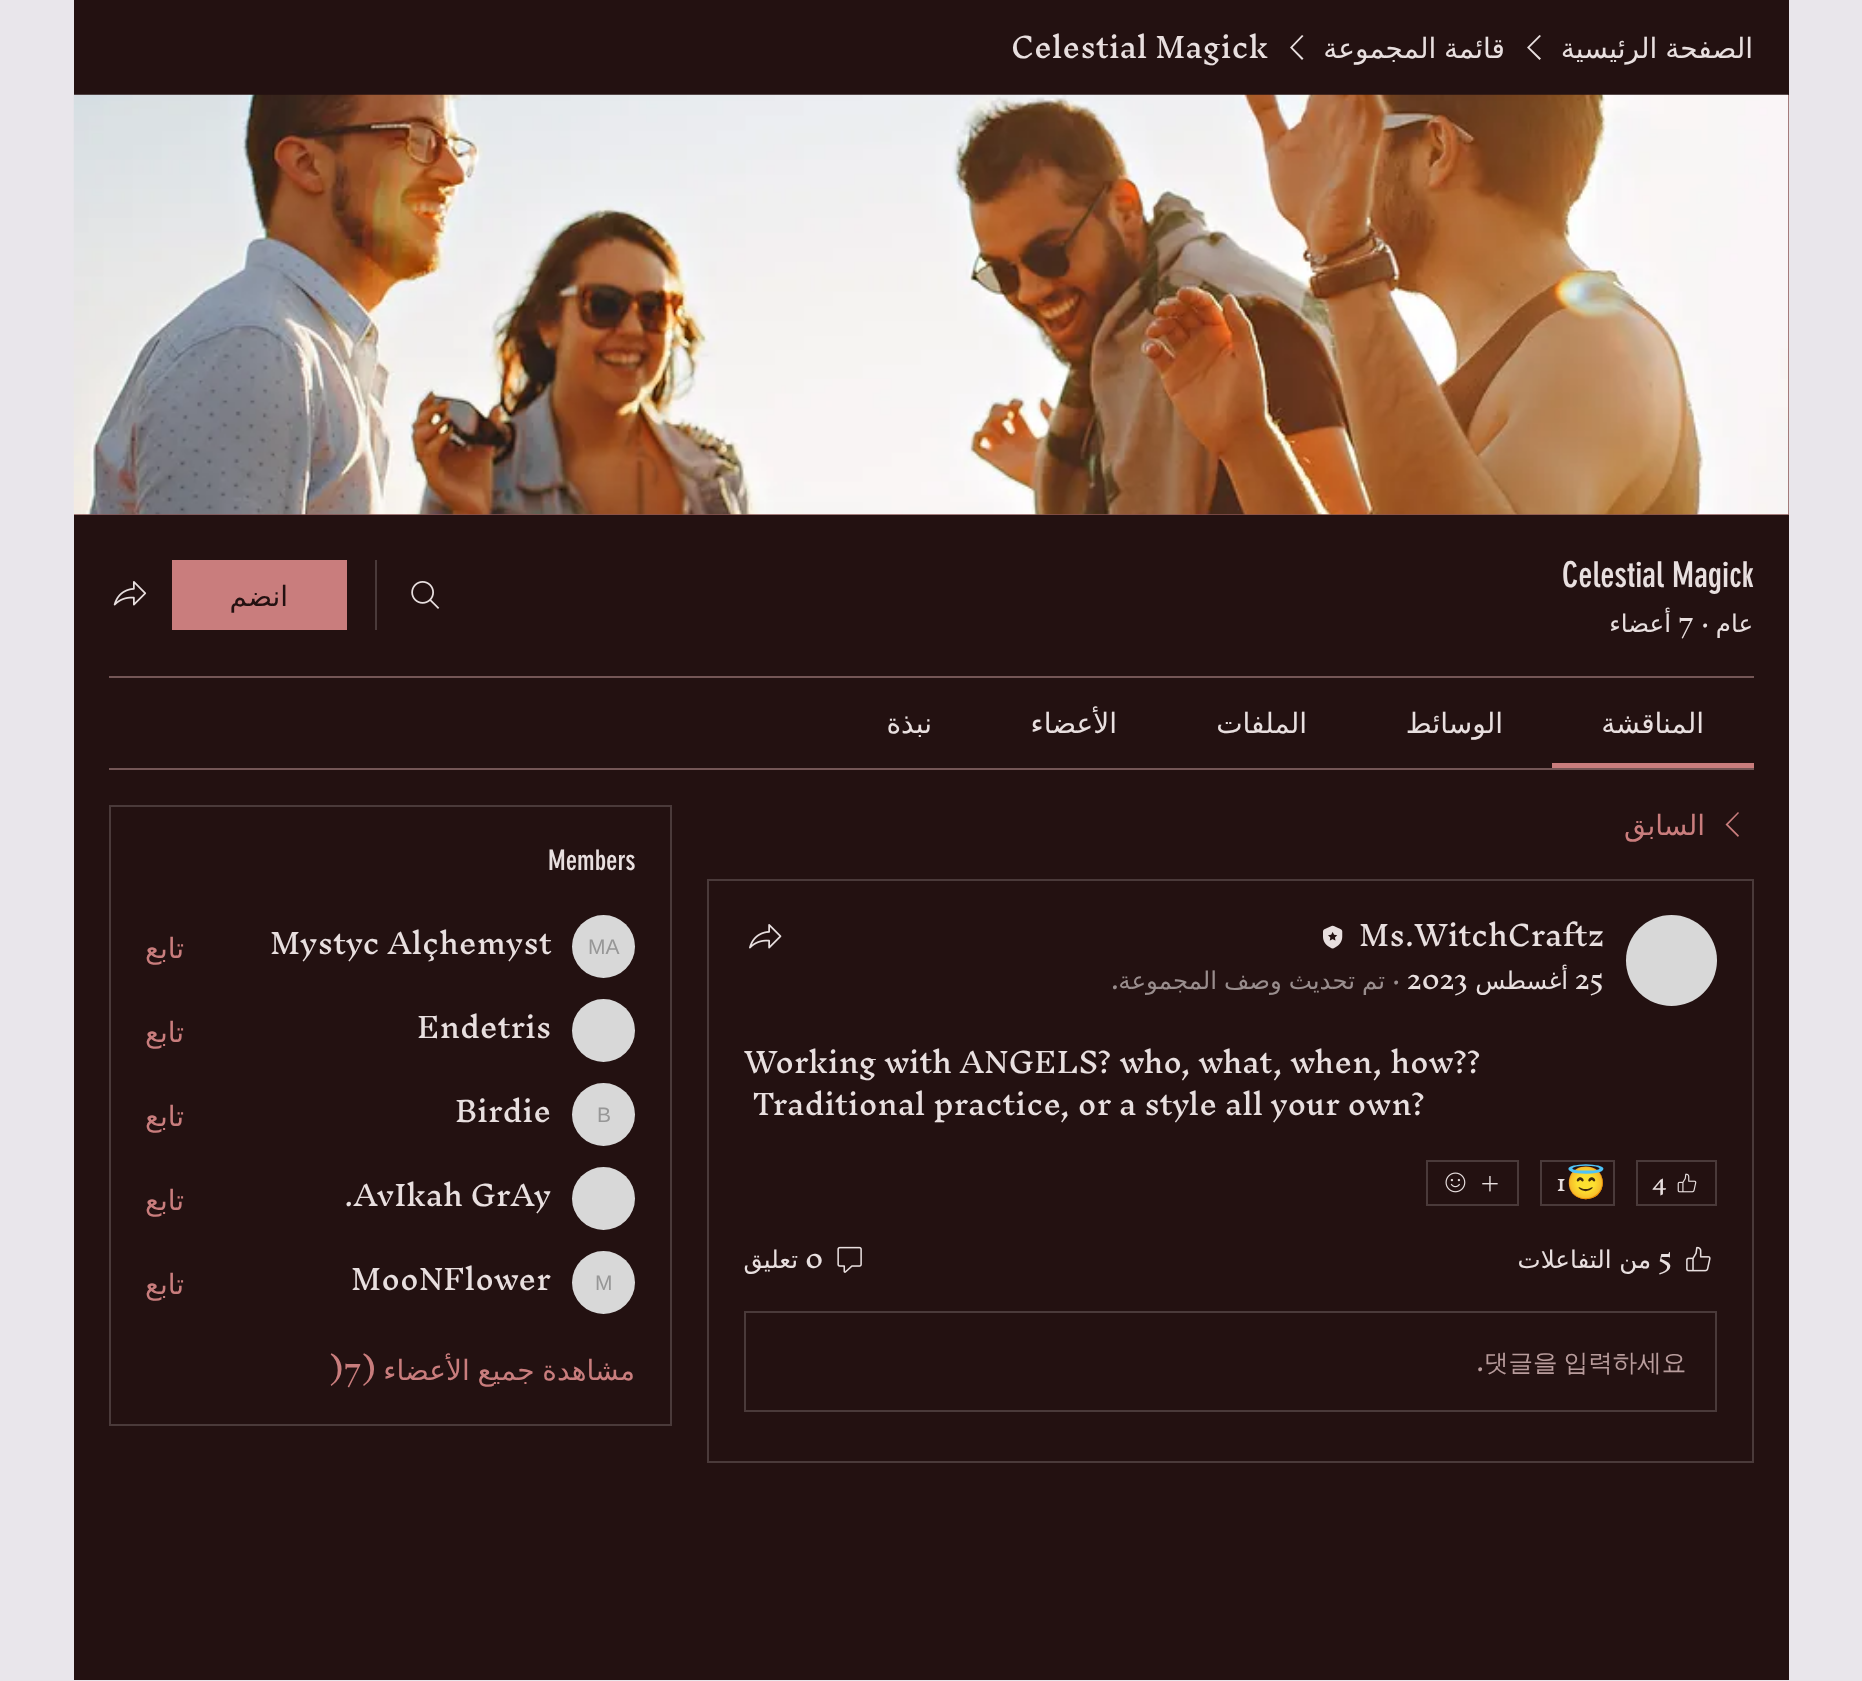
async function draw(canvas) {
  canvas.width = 1862
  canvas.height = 1681
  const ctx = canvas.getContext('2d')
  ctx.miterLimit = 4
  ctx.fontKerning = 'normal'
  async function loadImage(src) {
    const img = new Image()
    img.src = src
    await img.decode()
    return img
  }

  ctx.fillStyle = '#e9e6eb'
  ctx.fillRect(0, 0, 1862, 1681)
  ctx.fillStyle = '#231111'
  ctx.fillRect(74, 0, 1715, 1680)
  ctx.font = '28px Inknut Antiqua'
  ctx.fillStyle = '#e8dfdf'
  ctx.fillText('Celestial Magick', 1011, 58)
  ctx.beginPath()
  ctx.moveTo(1302, 35)
  ctx.lineTo(1290, 47.5)
  ctx.lineTo(1302, 60)
  ctx.lineTo(1303.5, 58.5)
  ctx.lineTo(1292.5, 47.5)
  ctx.lineTo(1303.5, 36)
  ctx.closePath()
  ctx.fill('evenodd')
  ctx.wordSpacing = '-1px'
  ctx.direction = 'rtl'
  ctx.font = '28px DejaVu Sans'
  ctx.fillText('قائمة المجموعة', 1505, 58)
  ctx.beginPath()
  ctx.moveTo(1539.5, 35)
  ctx.lineTo(1527, 47.5)
  ctx.lineTo(1539.5, 60)
  ctx.lineTo(1541, 58.5)
  ctx.lineTo(1529.5, 47.5)
  ctx.lineTo(1541, 36)
  ctx.closePath()
  ctx.fill('evenodd')
  ctx.fillText('الصفحة الرئيسية', 1753, 58)
  ctx.fillStyle = '#875252'
  ctx.fillRect(74, 95, 1715, 420)
  ctx.drawImage(await loadImage('image0.png'), 73, 94, 1716, 421)
  ctx.drawImage(await loadImage('image1.png'), 113, 581, 34, 25)
  ctx.fillStyle = '#c97d7d'
  ctx.fillRect(172, 560, 175, 70)
  ctx.wordSpacing = '0px'
  ctx.fillStyle = '#231111'
  ctx.fillText('انضم', 288, 606)
  ctx.fillStyle = '#4a3a3a'
  ctx.fillRect(375, 560, 2, 70)
  ctx.drawImage(await loadImage('image2.png'), 411, 581, 29, 28)
  ctx.direction = 'ltr'
  ctx.font = '35px "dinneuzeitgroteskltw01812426"'
  ctx.fillStyle = '#e8dfdf'
  ctx.fillText('Celestial Magick', 1562, 587)
  ctx.direction = 'rtl'
  ctx.font = '24.5px DejaVu Sans'
  ctx.fillText('أعضاء', 1671, 632)
  ctx.direction = 'ltr'
  ctx.font = '24.5px Inknut Antiqua'
  ctx.fillText('7', 1678, 632)
  ctx.fillText('·', 1701, 632)
  ctx.direction = 'rtl'
  ctx.font = '24.5px DejaVu Sans'
  ctx.fillText('عام', 1753, 632)
  ctx.fillStyle = '#745656'
  ctx.fillRect(109, 676, 1645, 2)
  ctx.fillRect(109, 768, 1645, 2)
  ctx.font = '28px DejaVu Sans'
  ctx.fillStyle = '#e8dfdf'
  ctx.fillText('نبذة', 932, 733)
  ctx.fillText('الأعضاء', 1117, 733)
  ctx.fillText('الملفات', 1307, 733)
  ctx.fillText('الوسائط', 1503, 733)
  ctx.fillStyle = '#c97d7d'
  ctx.fillRect(1552, 763, 202, 5)
  ctx.fillStyle = '#e8dfdf'
  ctx.fillText('المناقشة', 1704, 733)
  ctx.strokeStyle = '#4a3a3a'
  ctx.lineWidth = 2
  ctx.strokeRect(110, 806, 561, 619)
  ctx.direction = 'ltr'
  ctx.font = '28px "dinneuzeitgroteskltw01812426"'
  ctx.fillText('Members', 548, 870)
  ctx.direction = 'rtl'
  ctx.font = '28px DejaVu Sans'
  ctx.fillStyle = '#c97d7d'
  ctx.fillText('تابع', 184, 958)
  ctx.direction = 'ltr'
  ctx.font = '28px Inknut Antiqua'
  ctx.fillStyle = '#e8dfdf'
  ctx.fillText('Mystyc Alçhemyst', 270, 954)
  ctx.fillStyle = '#d8d8d8'
  ctx.beginPath()
  ctx.arc(603.5, 946.5, 31.5, 0, 2 * Math.PI)
  ctx.fill()
  ctx.font = '21px Liberation Sans'
  ctx.fillStyle = '#979797'
  ctx.fillText('MA', 588, 954)
  ctx.direction = 'rtl'
  ctx.font = '28px DejaVu Sans'
  ctx.fillStyle = '#c97d7d'
  ctx.fillText('تابع', 184, 1042)
  ctx.direction = 'ltr'
  ctx.font = '28px Inknut Antiqua'
  ctx.fillStyle = '#e8dfdf'
  ctx.fillText('Endetris', 417, 1038)
  ctx.fillStyle = '#d8d8d8'
  ctx.beginPath()
  ctx.arc(603.5, 1030.5, 31.5, 0, 2 * Math.PI)
  ctx.fill()
  ctx.direction = 'rtl'
  ctx.font = '28px DejaVu Sans'
  ctx.fillStyle = '#c97d7d'
  ctx.fillText('تابع', 184, 1126)
  ctx.direction = 'ltr'
  ctx.font = '28px Inknut Antiqua'
  ctx.fillStyle = '#e8dfdf'
  ctx.fillText('Birdie', 455, 1122)
  ctx.fillStyle = '#d8d8d8'
  ctx.beginPath()
  ctx.arc(603.5, 1114.5, 31.5, 0, 2 * Math.PI)
  ctx.fill()
  ctx.font = '21px Liberation Sans'
  ctx.fillStyle = '#979797'
  ctx.fillText('B', 597, 1122)
  ctx.direction = 'rtl'
  ctx.font = '28px DejaVu Sans'
  ctx.fillStyle = '#c97d7d'
  ctx.fillText('تابع', 184, 1210)
  ctx.direction = 'ltr'
  ctx.font = '28px Inknut Antiqua'
  ctx.fillStyle = '#e8dfdf'
  ctx.fillText('.AvIkah GrAy', 344, 1206)
  ctx.fillStyle = '#d8d8d8'
  ctx.beginPath()
  ctx.arc(603.5, 1198.5, 31.5, 0, 2 * Math.PI)
  ctx.fill()
  ctx.direction = 'rtl'
  ctx.font = '28px DejaVu Sans'
  ctx.fillStyle = '#c97d7d'
  ctx.fillText('تابع', 184, 1294)
  ctx.direction = 'ltr'
  ctx.font = '28px Inknut Antiqua'
  ctx.fillStyle = '#e8dfdf'
  ctx.fillText('MooNFlower', 351, 1290)
  ctx.fillStyle = '#d8d8d8'
  ctx.beginPath()
  ctx.arc(603.5, 1282.5, 31.5, 0, 2 * Math.PI)
  ctx.fill()
  ctx.font = '21px Liberation Sans'
  ctx.fillStyle = '#979797'
  ctx.fillText('M', 595, 1290)
  ctx.font = '28px Inknut Antiqua'
  ctx.fillStyle = '#c97d7d'
  ctx.fillText(')7', 329, 1380)
  ctx.direction = 'rtl'
  ctx.fillText('(', 376, 1380)
  ctx.wordSpacing = '-1px'
  ctx.font = '28px DejaVu Sans'
  ctx.fillText('مشاهدة جميع الأعضاء', 635, 1380)
  ctx.wordSpacing = '0px'
  ctx.fillText('السابق', 1705, 835)
  ctx.beginPath()
  ctx.moveTo(1738, 812)
  ctx.lineTo(1739, 813)
  ctx.lineTo(1728, 824.5)
  ctx.lineTo(1739, 835.5)
  ctx.lineTo(1738, 837)
  ctx.lineTo(1725.5, 824.5)
  ctx.closePath()
  ctx.fill('evenodd')
  ctx.strokeRect(708, 880, 1045, 582)
  ctx.drawImage(await loadImage('image3.png'), 749, 924, 33, 25)
  ctx.drawImage(await loadImage('image4.png'), 1323, 925, 20, 24)
  ctx.direction = 'ltr'
  ctx.font = '28px Inknut Antiqua'
  ctx.fillStyle = '#e8dfdf'
  ctx.fillText('Ms.WitchCraftz', 1359, 946)
  ctx.wordSpacing = '-1px'
  ctx.direction = 'rtl'
  ctx.font = '24.5px DejaVu Sans'
  ctx.fillStyle = '#998d8d'
  ctx.fillText('تم تحديث وصف المجموعة', 1385, 989)
  ctx.wordSpacing = '0px'
  ctx.direction = 'ltr'
  ctx.font = '24.5px Inknut Antiqua'
  ctx.fillText('·', 1392, 989)
  ctx.fillStyle = '#e8dfdf'
  ctx.fillText('2023', 1407, 989)
  ctx.direction = 'rtl'
  ctx.font = '24.5px DejaVu Sans'
  ctx.fillText('أغسطس', 1568, 989)
  ctx.direction = 'ltr'
  ctx.font = '24.5px Inknut Antiqua'
  ctx.fillText('25', 1575, 989)
  ctx.direction = 'rtl'
  ctx.fillStyle = '#998d8d'
  ctx.fillText('.', 1119, 989)
  ctx.fillStyle = '#d8d8d8'
  ctx.beginPath()
  ctx.arc(1671.5, 960.5, 45.5, 0, 2 * Math.PI)
  ctx.fill()
  ctx.direction = 'ltr'
  ctx.font = '28px Inknut Antiqua'
  ctx.fillStyle = '#e8dfdf'
  ctx.fillText('Working with ANGELS? who, what, when, how??', 744, 1073)
  ctx.fillText('Traditional practice, or a style all your own?', 752, 1115)
  ctx.strokeRect(1427, 1161, 91, 44)
  ctx.drawImage(await loadImage('image5.png'), 1445, 1172, 21, 21)
  ctx.drawImage(await loadImage('image6.png'), 1482, 1176, 16, 16)
  ctx.strokeRect(1541, 1161, 73, 44)
  ctx.font = '21px Inknut Antiqua'
  ctx.fillText('1', 1556, 1191)
  ctx.font = '32px Noto Color Emoji'
  ctx.fillText('😇', 1566, 1194)
  ctx.strokeRect(1637, 1161, 79, 44)
  ctx.font = '21px Inknut Antiqua'
  ctx.fillText('4', 1652, 1191)
  ctx.drawImage(await loadImage('image7.png'), 1677, 1173, 20, 20)
  ctx.direction = 'rtl'
  ctx.font = '24.5px DejaVu Sans'
  ctx.fillText('تعليق', 798, 1268)
  ctx.direction = 'ltr'
  ctx.font = '24.5px Inknut Antiqua'
  ctx.fillText('0', 805, 1268)
  ctx.drawImage(await loadImage('image8.png'), 837, 1246, 25, 27)
  ctx.direction = 'rtl'
  ctx.font = '24.5px DejaVu Sans'
  ctx.fillText('من التفاعلات', 1651, 1268)
  ctx.direction = 'ltr'
  ctx.font = '24.5px Inknut Antiqua'
  ctx.fillText('5', 1658, 1268)
  ctx.drawImage(await loadImage('image9.png'), 1686, 1246, 25, 26)
  ctx.strokeRect(745, 1312, 971, 99)
  ctx.fillStyle = '#b89c9c'
  ctx.fillText('.', 1476, 1371)
  ctx.wordSpacing = '-1px'
  ctx.font = '500 24.5px WenQuanYi Zen Hei'
  ctx.fillText('댓글을 입력하세요', 1484, 1371)
}

draw(document.querySelector('canvas'))
